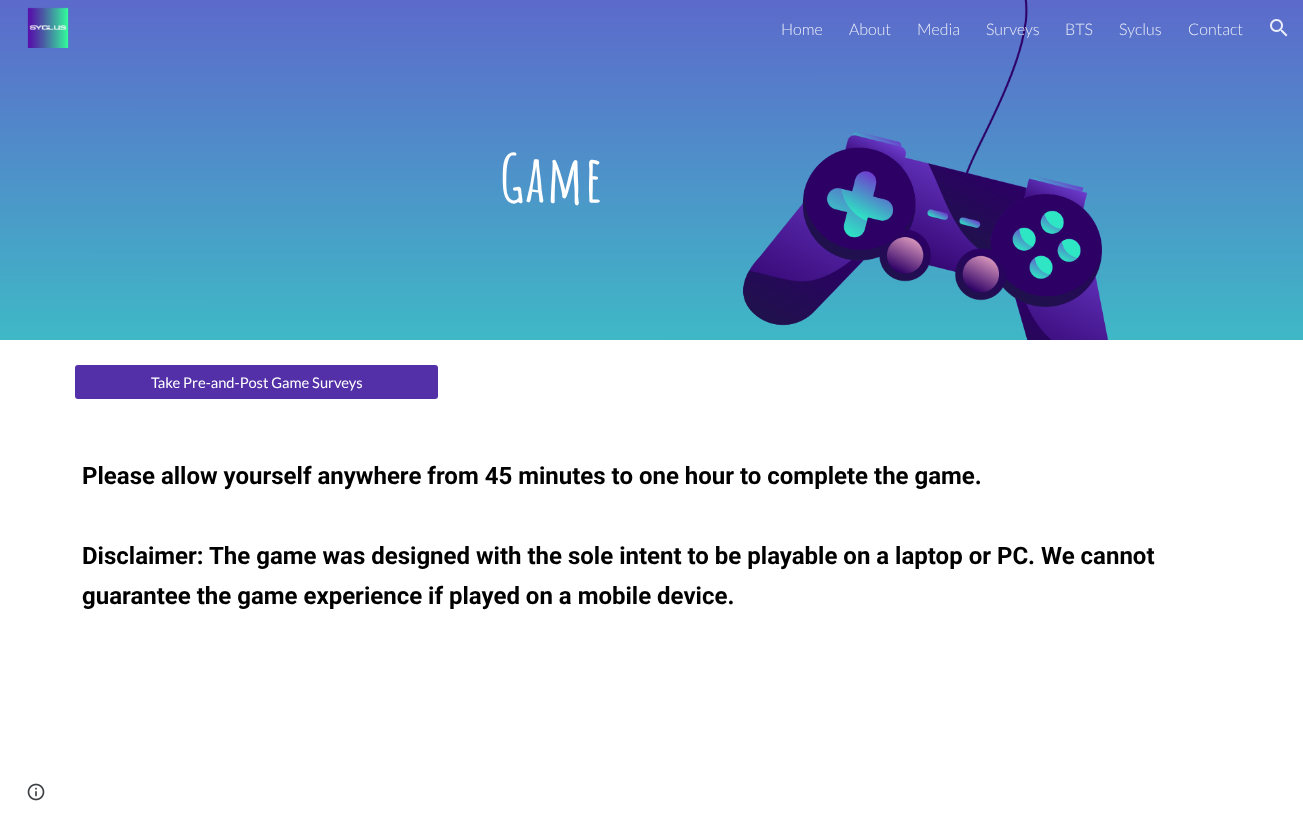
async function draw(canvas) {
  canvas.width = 1303
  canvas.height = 826
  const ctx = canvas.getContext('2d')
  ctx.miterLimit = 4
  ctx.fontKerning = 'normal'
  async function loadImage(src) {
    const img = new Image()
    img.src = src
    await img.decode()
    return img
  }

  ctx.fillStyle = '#fff'
  ctx.fillRect(0, 0, 1303, 826)
  ctx.drawImage(await loadImage('image2.png'), 0, 0, 1303, 340)
  ctx.drawImage(await loadImage('image0.png'), 27, 7, 42, 41)
  ctx.font = '300 16px Lato'
  ctx.fillStyle = '#eaedf8'
  ctx.fillText('Home', 781, 35)
  ctx.fillText('About', 849, 35)
  ctx.fillText('Media', 917, 35)
  ctx.fillText('Surveys', 986, 35)
  ctx.fillText('BTS', 1065, 35)
  ctx.fillText('Syclus', 1119, 35)
  ctx.fillText('Contact', 1188, 35)
  ctx.drawImage(await loadImage('image1.png'), 1270, 19, 18, 18)
  ctx.letterSpacing = '2px'
  ctx.font = 'bold 64px Amatic SC'
  ctx.fillStyle = '#fff'
  ctx.fillText('Game', 500, 202)
  ctx.fillStyle = '#5330a8'
  ctx.beginPath()
  ctx.roundRect(75, 365, 363, 34, 3)
  ctx.fill()
  ctx.letterSpacing = '0px'
  ctx.font = '14.7px Lato'
  ctx.fillStyle = '#fff'
  ctx.fillText('Take Pre-and-Post Game Surveys', 151, 388)
  ctx.font = 'bold 24px Roboto'
  ctx.fillStyle = '#000'
  ctx.fillText('Please allow yourself anywhere from 45 minutes to one hour to complete the game.', 82, 484)
  ctx.fillText('Disclaimer: The game was designed with the sole intent to be playable on a laptop or PC. We cannot', 82, 564)
  ctx.fillText('guarantee the game experience if played on a mobile device.', 82, 604)
  ctx.drawImage(await loadImage('image3.png'), 27, 783, 18, 18)
}

draw(document.querySelector('canvas'))
